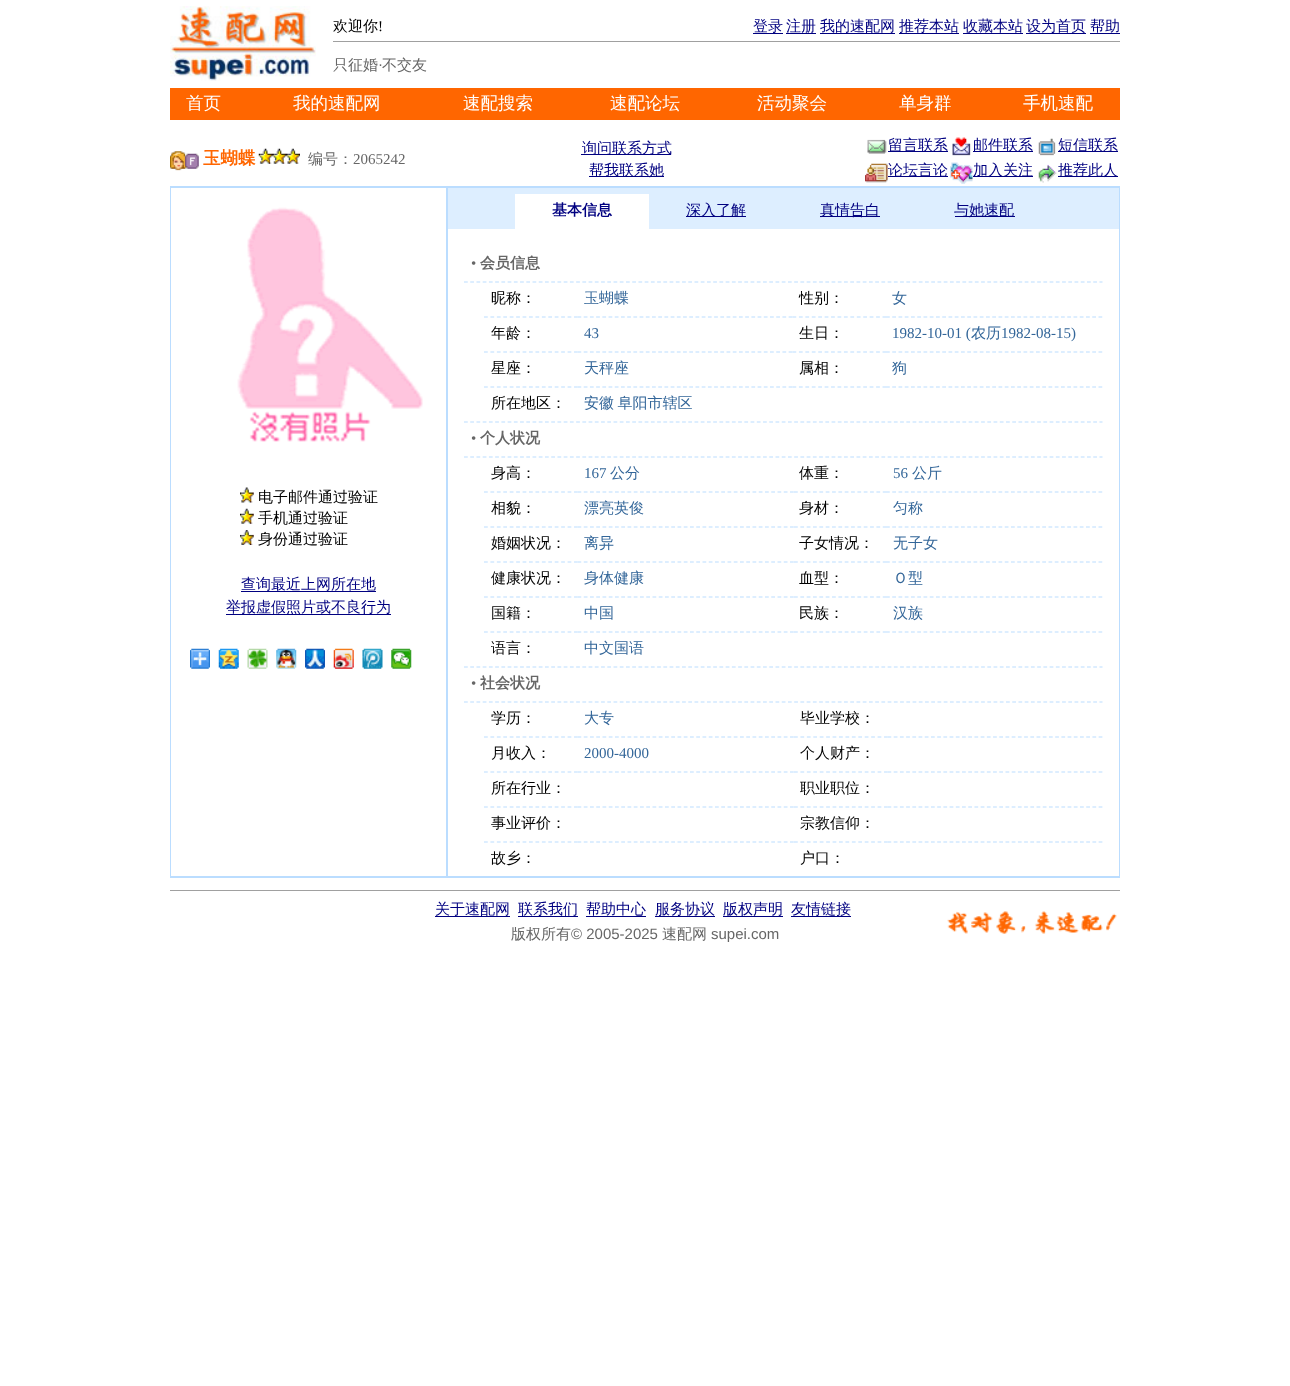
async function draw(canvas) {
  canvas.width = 1290
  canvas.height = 1386
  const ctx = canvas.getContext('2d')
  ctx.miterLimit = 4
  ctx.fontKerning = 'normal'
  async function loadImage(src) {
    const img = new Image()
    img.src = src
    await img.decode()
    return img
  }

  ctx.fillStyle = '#fff'
  ctx.fillRect(0, 0, 1290, 1386)
  ctx.drawImage(await loadImage('image0.png'), 170, 6, 146, 75)
  ctx.fillStyle = '#a0a0a0'
  ctx.fillRect(333, 41, 787, 1)
  ctx.font = '500 15px WenQuanYi Zen Hei'
  ctx.fillStyle = '#000'
  ctx.fillText('欢迎你', 333, 31)
  ctx.font = '15px Liberation Serif'
  ctx.fillText('!', 378, 31)
  ctx.font = '500 15px WenQuanYi Zen Hei'
  ctx.fillStyle = '#000080'
  ctx.fillText('登录', 753, 31)
  ctx.fillRect(753, 33, 30, 1)
  ctx.fillText('注册', 786, 31)
  ctx.fillRect(786, 33, 30, 1)
  ctx.fillText('我的速配网', 820, 31)
  ctx.fillRect(820, 33, 75, 1)
  ctx.fillRect(899, 33, 60, 1)
  ctx.fillText('推荐本站', 899, 31)
  ctx.fillRect(963, 33, 60, 1)
  ctx.fillText('收藏本站', 963, 31)
  ctx.fillRect(1026, 33, 60, 1)
  ctx.fillText('设为首页', 1026, 31)
  ctx.fillText('帮助', 1090, 31)
  ctx.fillRect(1090, 33, 30, 1)
  ctx.fillStyle = '#666'
  ctx.fillText('只征婚', 333, 70)
  ctx.font = '15px Liberation Serif'
  ctx.fillText('·', 378, 70)
  ctx.font = '500 15px WenQuanYi Zen Hei'
  ctx.fillText('不交友', 382, 70)
  ctx.fillStyle = '#f60'
  ctx.fillRect(170, 88, 950, 32)
  ctx.font = '500 17.5px WenQuanYi Zen Hei'
  ctx.fillStyle = '#fff'
  ctx.fillText('首页', 186, 109)
  ctx.fillText('我的速配网', 293, 109)
  ctx.fillText('速配搜索', 463, 109)
  ctx.fillText('速配论坛', 610, 109)
  ctx.fillText('活动聚会', 757, 109)
  ctx.fillText('单身群', 899, 109)
  ctx.fillText('手机速配', 1023, 109)
  ctx.drawImage(await loadImage('image1.png'), 170, 151, 29, 20)
  ctx.font = 'bold 17.5px WenQuanYi Zen Hei'
  ctx.fillStyle = '#f60'
  ctx.fillText('玉蝴蝶', 203, 164)
  ctx.drawImage(await loadImage('image2.png'), 258, 148, 42, 16)
  ctx.font = '500 15px WenQuanYi Zen Hei'
  ctx.fillStyle = '#666'
  ctx.fillText('编号：', 308, 164)
  ctx.font = '15px Liberation Serif'
  ctx.fillText('2065242', 353, 164)
  ctx.fillStyle = '#000080'
  ctx.fillRect(581, 154, 90, 1)
  ctx.font = '500 15px WenQuanYi Zen Hei'
  ctx.fillText('询问联系方式', 582, 153)
  ctx.fillRect(589, 176, 75, 1)
  ctx.fillText('帮我联系她', 589, 175)
  ctx.drawImage(await loadImage('image3.png'), 867, 139, 20, 15)
  ctx.fillRect(888, 151, 60, 1)
  ctx.fillText('留言联系', 888, 150)
  ctx.drawImage(await loadImage('image4.png'), 952, 137, 19, 19)
  ctx.fillRect(973, 151, 60, 1)
  ctx.fillText('邮件联系', 973, 150)
  ctx.drawImage(await loadImage('image5.png'), 1038, 138, 18, 18)
  ctx.fillRect(1058, 151, 60, 1)
  ctx.fillText('短信联系', 1058, 150)
  ctx.drawImage(await loadImage('image6.png'), 865, 163, 23, 20)
  ctx.fillRect(888, 176, 60, 1)
  ctx.fillText('论坛言论', 888, 175)
  ctx.drawImage(await loadImage('image7.png'), 950, 162, 23, 22)
  ctx.fillRect(973, 176, 60, 1)
  ctx.fillText('加入关注', 973, 175)
  ctx.drawImage(await loadImage('image8.png'), 1038, 164, 19, 19)
  ctx.fillRect(1058, 176, 60, 1)
  ctx.fillText('推荐此人', 1058, 175)
  ctx.fillStyle = '#bdf'
  ctx.fillRect(170, 186, 950, 692)
  ctx.fillStyle = '#fff'
  ctx.fillRect(171, 188, 275, 688)
  ctx.drawImage(await loadImage('image9.png'), 237, 207, 186, 235)
  ctx.drawImage(await loadImage('image10.png'), 240, 487, 14, 16)
  ctx.fillStyle = '#000'
  ctx.fillText('电子邮件通过验证', 258, 502)
  ctx.drawImage(await loadImage('image11.png'), 240, 508, 14, 16)
  ctx.fillText('手机通过验证', 258, 523)
  ctx.drawImage(await loadImage('image12.png'), 240, 530, 14, 15)
  ctx.fillText('身份通过验证', 258, 544)
  ctx.fillStyle = '#000080'
  ctx.fillText('查询最近上网所在地', 241, 589)
  ctx.fillRect(241, 591, 135, 1)
  ctx.fillRect(226, 614, 165, 1)
  ctx.fillText('举报虚假照片或不良行为', 226, 612)
  ctx.drawImage(await loadImage('image13.png'), 190, 648, 20, 21)
  ctx.drawImage(await loadImage('image14.png'), 218, 648, 21, 21)
  ctx.drawImage(await loadImage('image15.png'), 247, 648, 21, 21)
  ctx.drawImage(await loadImage('image16.png'), 276, 648, 21, 21)
  ctx.drawImage(await loadImage('image17.png'), 305, 648, 20, 21)
  ctx.drawImage(await loadImage('image18.png'), 333, 648, 21, 21)
  ctx.drawImage(await loadImage('image19.png'), 362, 648, 21, 21)
  ctx.drawImage(await loadImage('image20.png'), 391, 648, 21, 21)
  ctx.fillStyle = '#fff'
  ctx.fillRect(448, 229, 671, 647)
  ctx.fillStyle = '#def'
  ctx.fillRect(448, 188, 671, 41)
  ctx.fillStyle = '#fff'
  ctx.fillRect(515, 194, 134, 35)
  ctx.font = 'bold 15px WenQuanYi Zen Hei'
  ctx.fillStyle = '#000080'
  ctx.fillText('基本信息', 552, 215)
  ctx.fillRect(686, 216, 60, 1)
  ctx.font = '500 15px WenQuanYi Zen Hei'
  ctx.fillText('深入了解', 686, 215)
  ctx.fillRect(820, 216, 60, 1)
  ctx.fillText('真情告白', 820, 215)
  ctx.fillRect(955, 216, 60, 1)
  ctx.fillText('与她速配', 954, 215)
  ctx.beginPath()
  ctx.moveTo(464, 282)
  ctx.lineTo(1102.5, 282)
  ctx.strokeStyle = '#bdf'
  ctx.lineWidth = 1.2
  ctx.setLineDash([3.75, 2.48])
  ctx.stroke()
  ctx.font = '15px Liberation Serif'
  ctx.fillStyle = '#666'
  ctx.fillText('•', 471, 268)
  ctx.font = 'bold 15px WenQuanYi Zen Hei'
  ctx.fillText('会员信息', 480, 268)
  ctx.beginPath()
  ctx.moveTo(484, 317)
  ctx.lineTo(577.5, 317)
  ctx.setLineDash([3.75, 2.68])
  ctx.stroke()
  ctx.font = '500 15px WenQuanYi Zen Hei'
  ctx.fillStyle = '#000'
  ctx.fillText('昵称：', 491, 303)
  ctx.beginPath()
  ctx.moveTo(577.5, 317)
  ctx.lineTo(792.5, 317)
  ctx.setLineDash([3.75, 2.46])
  ctx.stroke()
  ctx.fillStyle = '#369'
  ctx.fillText('玉蝴蝶', 584, 303)
  ctx.beginPath()
  ctx.moveTo(792.5, 317)
  ctx.lineTo(886, 317)
  ctx.setLineDash([3.75, 2.68])
  ctx.stroke()
  ctx.fillStyle = '#000'
  ctx.fillText('性别：', 799, 303)
  ctx.beginPath()
  ctx.moveTo(886, 317)
  ctx.lineTo(1102.5, 317)
  ctx.setLineDash([3.75, 2.5])
  ctx.stroke()
  ctx.fillStyle = '#369'
  ctx.fillText('女', 892, 303)
  ctx.beginPath()
  ctx.moveTo(484, 352)
  ctx.lineTo(577.5, 352)
  ctx.setLineDash([3.75, 2.68])
  ctx.stroke()
  ctx.fillStyle = '#000'
  ctx.fillText('年龄：', 491, 338)
  ctx.beginPath()
  ctx.moveTo(577.5, 352)
  ctx.lineTo(792.5, 352)
  ctx.setLineDash([3.75, 2.46])
  ctx.stroke()
  ctx.font = '15px Liberation Serif'
  ctx.fillStyle = '#369'
  ctx.fillText('43', 584, 338)
  ctx.beginPath()
  ctx.moveTo(792.5, 352)
  ctx.lineTo(886, 352)
  ctx.setLineDash([3.75, 2.68])
  ctx.stroke()
  ctx.font = '500 15px WenQuanYi Zen Hei'
  ctx.fillStyle = '#000'
  ctx.fillText('生日：', 799, 338)
  ctx.beginPath()
  ctx.moveTo(886, 352)
  ctx.lineTo(1102.5, 352)
  ctx.setLineDash([3.75, 2.5])
  ctx.stroke()
  ctx.font = '15px Liberation Serif'
  ctx.fillStyle = '#369'
  ctx.fillText('1982-10-01 (', 892, 338)
  ctx.font = '500 15px WenQuanYi Zen Hei'
  ctx.fillText('农历', 971, 338)
  ctx.font = '15px Liberation Serif'
  ctx.fillText('1982-08-15)', 1001, 338)
  ctx.beginPath()
  ctx.moveTo(484, 387)
  ctx.lineTo(577.5, 387)
  ctx.setLineDash([3.75, 2.68])
  ctx.stroke()
  ctx.font = '500 15px WenQuanYi Zen Hei'
  ctx.fillStyle = '#000'
  ctx.fillText('星座：', 491, 373)
  ctx.beginPath()
  ctx.moveTo(577.5, 387)
  ctx.lineTo(792.5, 387)
  ctx.setLineDash([3.75, 2.46])
  ctx.stroke()
  ctx.fillStyle = '#369'
  ctx.fillText('天秤座', 584, 373)
  ctx.beginPath()
  ctx.moveTo(792.5, 387)
  ctx.lineTo(886, 387)
  ctx.setLineDash([3.75, 2.68])
  ctx.stroke()
  ctx.fillStyle = '#000'
  ctx.fillText('属相：', 799, 373)
  ctx.beginPath()
  ctx.moveTo(886, 387)
  ctx.lineTo(1102.5, 387)
  ctx.setLineDash([3.75, 2.5])
  ctx.stroke()
  ctx.fillStyle = '#369'
  ctx.fillText('狗', 892, 373)
  ctx.fillStyle = '#000'
  ctx.fillText('所在地区：', 491, 408)
  ctx.wordSpacing = '-1px'
  ctx.fillStyle = '#369'
  ctx.fillText('安徽 阜阳市辖区', 584, 408)
  ctx.beginPath()
  ctx.moveTo(464, 422)
  ctx.lineTo(1102.5, 422)
  ctx.setLineDash([3.75, 2.48])
  ctx.stroke()
  ctx.beginPath()
  ctx.moveTo(464, 457)
  ctx.lineTo(1102.5, 457)
  ctx.stroke()
  ctx.wordSpacing = '0px'
  ctx.font = '15px Liberation Serif'
  ctx.fillStyle = '#666'
  ctx.fillText('•', 471, 443)
  ctx.font = 'bold 15px WenQuanYi Zen Hei'
  ctx.fillText('个人状况', 480, 443)
  ctx.beginPath()
  ctx.moveTo(484, 492)
  ctx.lineTo(577.5, 492)
  ctx.setLineDash([3.75, 2.68])
  ctx.stroke()
  ctx.font = '500 15px WenQuanYi Zen Hei'
  ctx.fillStyle = '#000'
  ctx.fillText('身高：', 491, 478)
  ctx.beginPath()
  ctx.moveTo(577.5, 492)
  ctx.lineTo(794, 492)
  ctx.setLineDash([3.75, 2.5])
  ctx.stroke()
  ctx.font = '15px Liberation Serif'
  ctx.fillStyle = '#369'
  ctx.fillText('167', 584, 478)
  ctx.font = '500 15px WenQuanYi Zen Hei'
  ctx.fillText('公分', 610, 478)
  ctx.beginPath()
  ctx.moveTo(794, 492)
  ctx.lineTo(886, 492)
  ctx.setLineDash([3.75, 2.59])
  ctx.stroke()
  ctx.fillStyle = '#000'
  ctx.fillText('体重：', 799, 478)
  ctx.beginPath()
  ctx.moveTo(886, 492)
  ctx.lineTo(1102.5, 492)
  ctx.setLineDash([3.75, 2.5])
  ctx.stroke()
  ctx.font = '15px Liberation Serif'
  ctx.fillStyle = '#369'
  ctx.fillText('56', 893, 478)
  ctx.font = '500 15px WenQuanYi Zen Hei'
  ctx.fillText('公斤', 912, 478)
  ctx.beginPath()
  ctx.moveTo(484, 527)
  ctx.lineTo(577.5, 527)
  ctx.setLineDash([3.75, 2.68])
  ctx.stroke()
  ctx.fillStyle = '#000'
  ctx.fillText('相貌：', 491, 513)
  ctx.beginPath()
  ctx.moveTo(577.5, 527)
  ctx.lineTo(794, 527)
  ctx.setLineDash([3.75, 2.5])
  ctx.stroke()
  ctx.fillStyle = '#369'
  ctx.fillText('漂亮英俊', 584, 513)
  ctx.beginPath()
  ctx.moveTo(794, 527)
  ctx.lineTo(886, 527)
  ctx.setLineDash([3.75, 2.59])
  ctx.stroke()
  ctx.fillStyle = '#000'
  ctx.fillText('身材：', 799, 513)
  ctx.beginPath()
  ctx.moveTo(886, 527)
  ctx.lineTo(1102.5, 527)
  ctx.setLineDash([3.75, 2.5])
  ctx.stroke()
  ctx.fillStyle = '#369'
  ctx.fillText('匀称', 893, 513)
  ctx.beginPath()
  ctx.moveTo(484, 562)
  ctx.lineTo(577.5, 562)
  ctx.setLineDash([3.75, 2.68])
  ctx.stroke()
  ctx.fillStyle = '#000'
  ctx.fillText('婚姻状况：', 491, 548)
  ctx.beginPath()
  ctx.moveTo(577.5, 562)
  ctx.lineTo(794, 562)
  ctx.setLineDash([3.75, 2.5])
  ctx.stroke()
  ctx.fillStyle = '#369'
  ctx.fillText('离异', 584, 548)
  ctx.beginPath()
  ctx.moveTo(794, 562)
  ctx.lineTo(886, 562)
  ctx.setLineDash([3.75, 2.59])
  ctx.stroke()
  ctx.fillStyle = '#000'
  ctx.fillText('子女情况：', 799, 548)
  ctx.beginPath()
  ctx.moveTo(886, 562)
  ctx.lineTo(1102.5, 562)
  ctx.setLineDash([3.75, 2.5])
  ctx.stroke()
  ctx.fillStyle = '#369'
  ctx.fillText('无子女', 893, 548)
  ctx.beginPath()
  ctx.moveTo(484, 597)
  ctx.lineTo(577.5, 597)
  ctx.setLineDash([3.75, 2.68])
  ctx.stroke()
  ctx.fillStyle = '#000'
  ctx.fillText('健康状况：', 491, 583)
  ctx.beginPath()
  ctx.moveTo(577.5, 597)
  ctx.lineTo(794, 597)
  ctx.setLineDash([3.75, 2.5])
  ctx.stroke()
  ctx.fillStyle = '#369'
  ctx.fillText('身体健康', 584, 583)
  ctx.beginPath()
  ctx.moveTo(794, 597)
  ctx.lineTo(886, 597)
  ctx.setLineDash([3.75, 2.59])
  ctx.stroke()
  ctx.fillStyle = '#000'
  ctx.fillText('血型：', 799, 583)
  ctx.beginPath()
  ctx.moveTo(886, 597)
  ctx.lineTo(1102.5, 597)
  ctx.setLineDash([3.75, 2.5])
  ctx.stroke()
  ctx.fillStyle = '#369'
  ctx.fillText('Ｏ型', 893, 583)
  ctx.beginPath()
  ctx.moveTo(484, 632)
  ctx.lineTo(577.5, 632)
  ctx.setLineDash([3.75, 2.68])
  ctx.stroke()
  ctx.fillStyle = '#000'
  ctx.fillText('国籍：', 491, 618)
  ctx.beginPath()
  ctx.moveTo(577.5, 632)
  ctx.lineTo(794, 632)
  ctx.setLineDash([3.75, 2.5])
  ctx.stroke()
  ctx.fillStyle = '#369'
  ctx.fillText('中国', 584, 618)
  ctx.beginPath()
  ctx.moveTo(794, 632)
  ctx.lineTo(886, 632)
  ctx.setLineDash([3.75, 2.59])
  ctx.stroke()
  ctx.fillStyle = '#000'
  ctx.fillText('民族：', 799, 618)
  ctx.beginPath()
  ctx.moveTo(886, 632)
  ctx.lineTo(1102.5, 632)
  ctx.setLineDash([3.75, 2.5])
  ctx.stroke()
  ctx.fillStyle = '#369'
  ctx.fillText('汉族', 893, 618)
  ctx.fillStyle = '#000'
  ctx.fillText('语言：', 491, 653)
  ctx.fillStyle = '#369'
  ctx.fillText('中文国语', 584, 653)
  ctx.beginPath()
  ctx.moveTo(464, 667)
  ctx.lineTo(1102.5, 667)
  ctx.setLineDash([3.75, 2.48])
  ctx.stroke()
  ctx.beginPath()
  ctx.moveTo(464, 702)
  ctx.lineTo(1102.5, 702)
  ctx.stroke()
  ctx.font = '15px Liberation Serif'
  ctx.fillStyle = '#666'
  ctx.fillText('•', 471, 688)
  ctx.font = 'bold 15px WenQuanYi Zen Hei'
  ctx.fillText('社会状况', 480, 688)
  ctx.beginPath()
  ctx.moveTo(484, 737)
  ctx.lineTo(577.5, 737)
  ctx.setLineDash([3.75, 2.68])
  ctx.stroke()
  ctx.font = '500 15px WenQuanYi Zen Hei'
  ctx.fillStyle = '#000'
  ctx.fillText('学历：', 491, 723)
  ctx.beginPath()
  ctx.moveTo(577.5, 737)
  ctx.lineTo(794, 737)
  ctx.setLineDash([3.75, 2.5])
  ctx.stroke()
  ctx.fillStyle = '#369'
  ctx.fillText('大专', 584, 723)
  ctx.beginPath()
  ctx.moveTo(794, 737)
  ctx.lineTo(887.5, 737)
  ctx.setLineDash([3.75, 2.68])
  ctx.stroke()
  ctx.fillStyle = '#000'
  ctx.fillText('毕业学校：', 800, 723)
  ctx.beginPath()
  ctx.moveTo(887.5, 737)
  ctx.lineTo(1102.5, 737)
  ctx.setLineDash([3.75, 2.46])
  ctx.stroke()
  ctx.beginPath()
  ctx.moveTo(484, 772)
  ctx.lineTo(577.5, 772)
  ctx.setLineDash([3.75, 2.68])
  ctx.stroke()
  ctx.fillText('月收入：', 491, 758)
  ctx.beginPath()
  ctx.moveTo(577.5, 772)
  ctx.lineTo(794, 772)
  ctx.setLineDash([3.75, 2.5])
  ctx.stroke()
  ctx.font = '15px Liberation Serif'
  ctx.fillStyle = '#369'
  ctx.fillText('2000-4000', 584, 758)
  ctx.beginPath()
  ctx.moveTo(794, 772)
  ctx.lineTo(887.5, 772)
  ctx.setLineDash([3.75, 2.68])
  ctx.stroke()
  ctx.font = '500 15px WenQuanYi Zen Hei'
  ctx.fillStyle = '#000'
  ctx.fillText('个人财产：', 800, 758)
  ctx.beginPath()
  ctx.moveTo(887.5, 772)
  ctx.lineTo(1102.5, 772)
  ctx.setLineDash([3.75, 2.46])
  ctx.stroke()
  ctx.beginPath()
  ctx.moveTo(484, 807)
  ctx.lineTo(577.5, 807)
  ctx.setLineDash([3.75, 2.68])
  ctx.stroke()
  ctx.fillText('所在行业：', 491, 793)
  ctx.beginPath()
  ctx.moveTo(794, 807)
  ctx.lineTo(887.5, 807)
  ctx.stroke()
  ctx.fillText('职业职位：', 800, 793)
  ctx.beginPath()
  ctx.moveTo(577.5, 807)
  ctx.lineTo(794, 807)
  ctx.setLineDash([3.75, 2.5])
  ctx.stroke()
  ctx.beginPath()
  ctx.moveTo(887.5, 807)
  ctx.lineTo(1102.5, 807)
  ctx.setLineDash([3.75, 2.46])
  ctx.stroke()
  ctx.beginPath()
  ctx.moveTo(484, 842)
  ctx.lineTo(577.5, 842)
  ctx.setLineDash([3.75, 2.68])
  ctx.stroke()
  ctx.fillText('事业评价：', 491, 828)
  ctx.beginPath()
  ctx.moveTo(794, 842)
  ctx.lineTo(887.5, 842)
  ctx.stroke()
  ctx.fillText('宗教信仰：', 800, 828)
  ctx.beginPath()
  ctx.moveTo(577.5, 842)
  ctx.lineTo(794, 842)
  ctx.setLineDash([3.75, 2.5])
  ctx.stroke()
  ctx.beginPath()
  ctx.moveTo(887.5, 842)
  ctx.lineTo(1102.5, 842)
  ctx.setLineDash([3.75, 2.46])
  ctx.stroke()
  ctx.fillText('故乡：', 491, 863)
  ctx.fillText('户口：', 800, 863)
  ctx.fillStyle = '#a0a0a0'
  ctx.fillRect(170, 890, 950, 1)
  ctx.fillStyle = '#000080'
  ctx.fillText('关于速配网', 435, 914)
  ctx.fillRect(435, 916, 75, 1)
  ctx.fillText('联系我们', 518, 914)
  ctx.fillRect(518, 916, 60, 1)
  ctx.fillText('帮助中心', 586, 914)
  ctx.fillRect(586, 916, 60, 1)
  ctx.fillRect(655, 916, 60, 1)
  ctx.fillText('服务协议', 655, 914)
  ctx.fillText('版权声明', 723, 914)
  ctx.fillRect(723, 916, 60, 1)
  ctx.fillRect(791, 916, 60, 1)
  ctx.fillText('友情链接', 791, 914)
  ctx.fillStyle = '#666'
  ctx.fillText('版权所有', 511, 939)
  ctx.font = '15px Liberation Sans'
  ctx.fillText('© 2005-2025', 571, 939)
  ctx.font = '500 15px WenQuanYi Zen Hei'
  ctx.fillText('速配网', 662, 939)
  ctx.font = '15px Liberation Sans'
  ctx.fillText('supei.com', 711, 939)
  ctx.drawImage(await loadImage('image21.png'), 947, 911, 170, 23)
}

draw(document.querySelector('canvas'))
